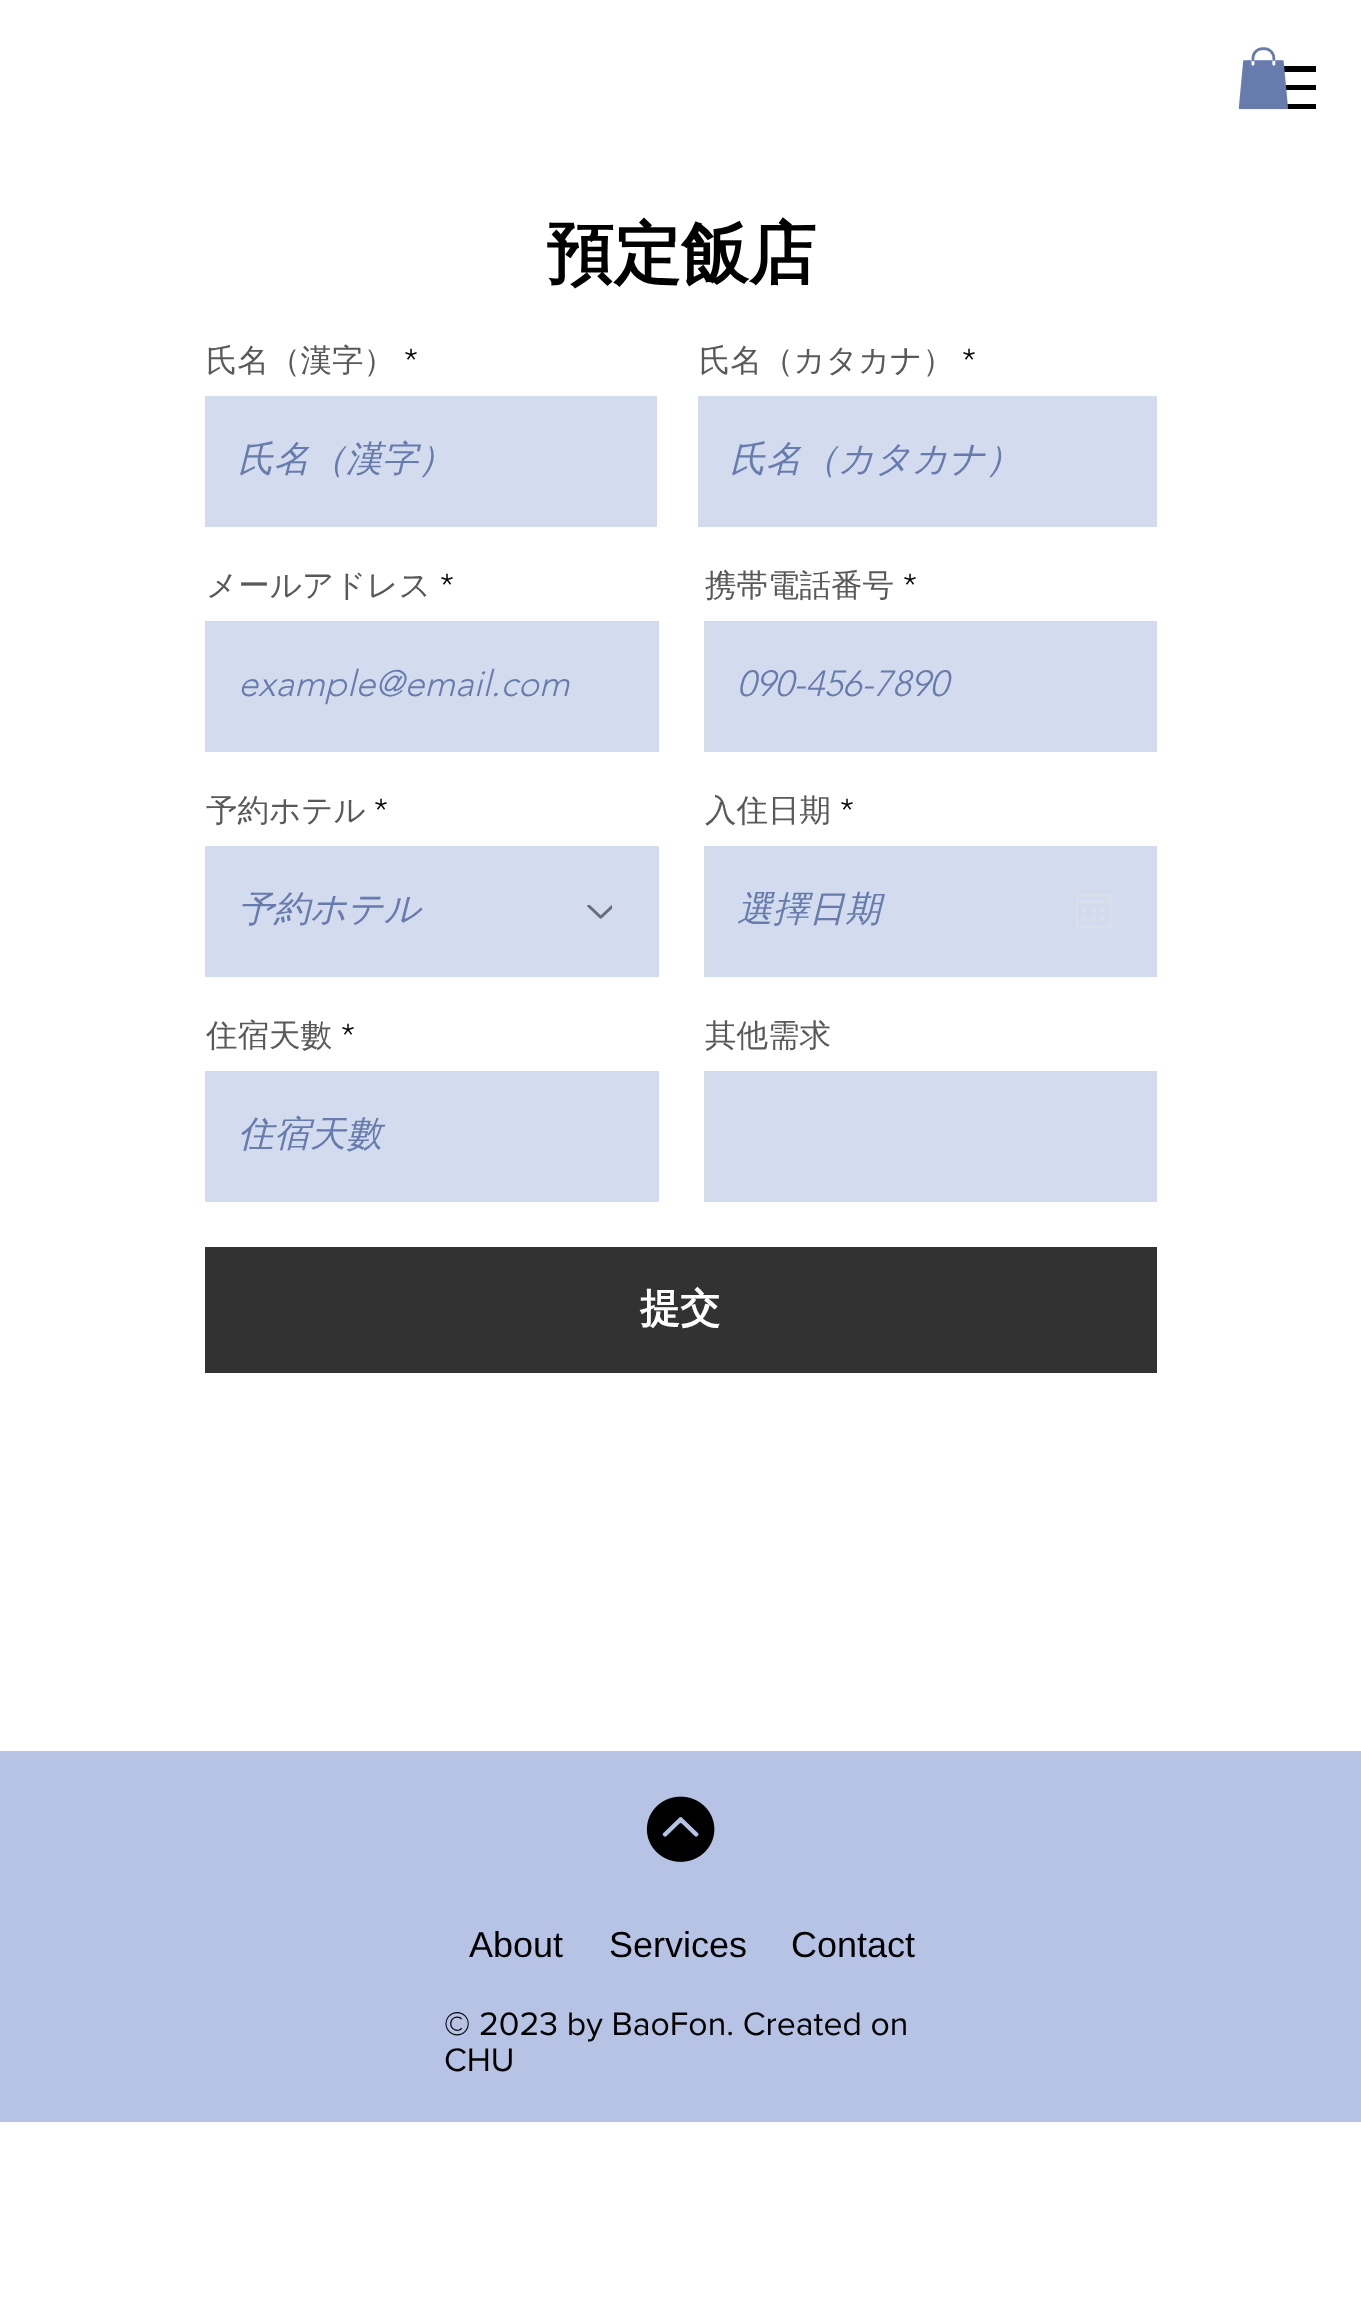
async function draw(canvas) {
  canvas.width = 1361
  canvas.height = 2300
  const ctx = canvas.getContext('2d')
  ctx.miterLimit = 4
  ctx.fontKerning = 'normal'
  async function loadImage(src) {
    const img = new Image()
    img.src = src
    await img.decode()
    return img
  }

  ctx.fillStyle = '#fff'
  ctx.fillRect(0, 0, 1361, 2300)
  ctx.fillStyle = '#000'
  ctx.fillRect(1287, 104, 29, 5)
  ctx.fillRect(1284, 66, 32, 6)
  ctx.fillRect(1285, 85, 31, 5)
  ctx.drawImage(await loadImage('image0.png'), 1238, 47, 50, 63)
  ctx.font = 'bold 67.5px WenQuanYi Zen Hei'
  ctx.fillText('預定飯店', 546, 277)
  ctx.font = '500 31.5px WenQuanYi Zen Hei'
  ctx.fillStyle = '#595959'
  ctx.fillText('氏名（漢字）', 206, 371)
  ctx.font = '300 31.5px "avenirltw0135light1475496"'
  ctx.fillStyle = '#000'
  ctx.fillText('*', 404, 371)
  ctx.fillStyle = '#d3dbef'
  ctx.fillRect(205, 396, 452, 131)
  ctx.font = 'italic 500 36px WenQuanYi Zen Hei'
  ctx.fillStyle = '#677bac'
  ctx.fillText('氏名（漢字）', 238, 471)
  ctx.font = '500 31.5px WenQuanYi Zen Hei'
  ctx.fillStyle = '#595959'
  ctx.fillText('氏名（カタカナ）', 699, 371)
  ctx.font = '300 31.5px "avenirltw0135light1475496"'
  ctx.fillStyle = '#000'
  ctx.fillText('*', 962, 371)
  ctx.fillStyle = '#d3dbef'
  ctx.fillRect(698, 396, 459, 131)
  ctx.font = 'italic 500 36px WenQuanYi Zen Hei'
  ctx.fillStyle = '#677bac'
  ctx.fillText('氏名（カタカナ）', 730, 471)
  ctx.font = '500 31.5px WenQuanYi Zen Hei'
  ctx.fillStyle = '#595959'
  ctx.fillText('メールアドレス', 206, 596)
  ctx.font = '300 31.5px "avenirltw0135light1475496"'
  ctx.fillStyle = '#000'
  ctx.fillText('*', 440, 596)
  ctx.fillStyle = '#d3dbef'
  ctx.fillRect(205, 621, 454, 131)
  ctx.font = 'italic 300 36px "avenirltw0135light1475496"'
  ctx.fillStyle = '#677bac'
  ctx.fillText('example@email.com', 238, 696)
  ctx.font = '500 31.5px WenQuanYi Zen Hei'
  ctx.fillStyle = '#595959'
  ctx.fillText('携帯電話番号', 705, 596)
  ctx.font = '300 31.5px "avenirltw0135light1475496"'
  ctx.fillStyle = '#000'
  ctx.fillText('*', 903, 596)
  ctx.fillStyle = '#d3dbef'
  ctx.fillRect(704, 621, 453, 131)
  ctx.font = 'italic 300 36px "avenirltw0135light1475496"'
  ctx.fillStyle = '#677bac'
  ctx.fillText('090-456-7890', 737, 696)
  ctx.font = '500 31.5px WenQuanYi Zen Hei'
  ctx.fillStyle = '#595959'
  ctx.fillText('予約ホテル', 206, 821)
  ctx.font = '300 31.5px "avenirltw0135light1475496"'
  ctx.fillStyle = '#000'
  ctx.fillText('*', 374, 821)
  ctx.fillStyle = '#d3dbef'
  ctx.fillRect(205, 846, 454, 131)
  ctx.font = 'italic 500 36px WenQuanYi Zen Hei'
  ctx.fillStyle = '#677bac'
  ctx.fillText('予約ホテル', 238, 921)
  ctx.drawImage(await loadImage('image1.png'), 587, 905, 25, 14)
  ctx.font = '500 31.5px WenQuanYi Zen Hei'
  ctx.fillStyle = '#595959'
  ctx.fillText('入住日期', 705, 821)
  ctx.font = '300 31.5px "avenirltw0135light1475496"'
  ctx.fillStyle = '#000'
  ctx.fillText('*', 840, 821)
  ctx.fillStyle = '#d3dbef'
  ctx.fillRect(704, 846, 453, 131)
  ctx.font = 'italic 500 36px WenQuanYi Zen Hei'
  ctx.fillStyle = '#677bac'
  ctx.fillText('選擇日期', 737, 921)
  ctx.drawImage(await loadImage('image2.png'), 1076, 894, 36, 34)
  ctx.font = '500 31.5px WenQuanYi Zen Hei'
  ctx.fillStyle = '#595959'
  ctx.fillText('住宿天數', 206, 1046)
  ctx.font = '300 31.5px "avenirltw0135light1475496"'
  ctx.fillStyle = '#000'
  ctx.fillText('*', 341, 1046)
  ctx.fillStyle = '#d3dbef'
  ctx.fillRect(205, 1071, 454, 131)
  ctx.font = 'italic 500 36px WenQuanYi Zen Hei'
  ctx.fillStyle = '#677bac'
  ctx.fillText('住宿天數', 238, 1146)
  ctx.font = '500 31.5px WenQuanYi Zen Hei'
  ctx.fillStyle = '#595959'
  ctx.fillText('其他需求', 705, 1046)
  ctx.fillStyle = '#d3dbef'
  ctx.fillRect(704, 1071, 453, 131)
  ctx.fillStyle = '#323232'
  ctx.fillRect(205, 1247, 952, 126)
  ctx.font = 'bold 40px WenQuanYi Zen Hei'
  ctx.fillStyle = '#fff'
  ctx.fillText('提交', 640, 1322)
  ctx.fillStyle = '#b6c3e4'
  ctx.fillRect(0, 1751, 1361, 371)
  ctx.drawImage(await loadImage('image3.png'), 646, 1796, 69, 66)
  ctx.font = '36px Liberation Sans'
  ctx.fillStyle = '#000'
  ctx.fillText('About', 469, 1957)
  ctx.fillText('Services', 609, 1957)
  ctx.fillText('Contact', 791, 1957)
  ctx.font = '33.75px "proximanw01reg"'
  ctx.fillText('© 2023 by BaoFon. Created on', 444, 2035)
  ctx.fillText('CHU', 444, 2071)
}

draw(document.querySelector('canvas'))
